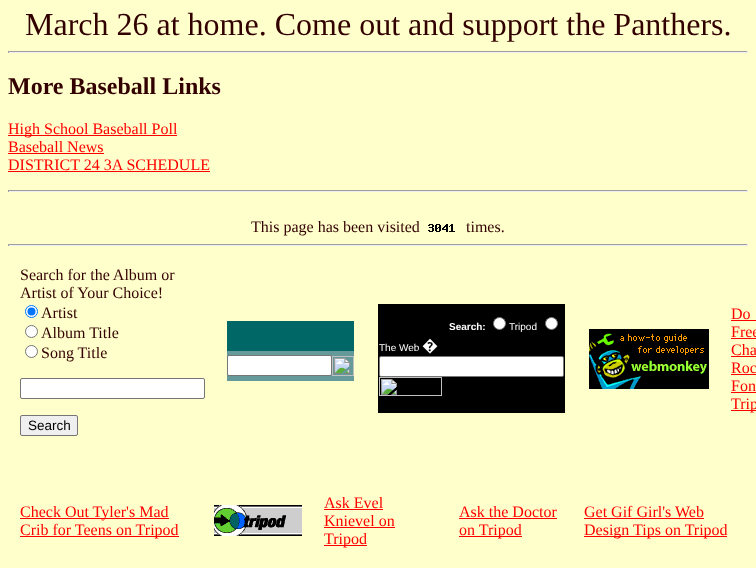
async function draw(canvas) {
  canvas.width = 756
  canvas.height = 568
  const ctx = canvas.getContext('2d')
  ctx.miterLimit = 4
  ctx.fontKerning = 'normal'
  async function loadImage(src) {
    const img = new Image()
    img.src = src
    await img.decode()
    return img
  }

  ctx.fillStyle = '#ffc'
  ctx.fillRect(0, 0, 756, 568)
  ctx.font = '32px Liberation Serif'
  ctx.fillStyle = '#300'
  ctx.fillText('March 26 at home. Come out and support the Panthers.', 25, 35)
  ctx.fillStyle = '#9f9f9f'
  ctx.fillRect(8, 51, 740, 1)
  ctx.fillStyle = '#eee'
  ctx.fillRect(747, 51, 1, 2)
  ctx.fillRect(8, 52, 740, 1)
  ctx.fillStyle = '#9f9f9f'
  ctx.fillRect(8, 51, 1, 2)
  ctx.font = 'bold 24px Liberation Serif'
  ctx.fillStyle = '#300'
  ctx.fillText('More Baseball Links', 8, 94)
  ctx.fillStyle = '#f00'
  ctx.fillRect(8, 135, 169, 1)
  ctx.font = '16px Liberation Serif'
  ctx.fillText('High School Baseball Poll', 8, 134)
  ctx.fillText('Baseball News', 8, 152)
  ctx.fillRect(8, 153, 96, 1)
  ctx.fillText('DISTRICT 24 3A SCHEDULE', 8, 170)
  ctx.fillRect(8, 171, 202, 1)
  ctx.fillStyle = '#9f9f9f'
  ctx.fillRect(8, 190, 740, 1)
  ctx.fillStyle = '#eee'
  ctx.fillRect(747, 190, 1, 2)
  ctx.fillRect(8, 191, 740, 1)
  ctx.fillStyle = '#9f9f9f'
  ctx.fillRect(8, 190, 1, 2)
  ctx.fillStyle = '#300'
  ctx.fillText('This page has been visited', 251, 232)
  ctx.drawImage(await loadImage('image0.png'), 428, 224, 27, 8)
  ctx.fillText('times.', 466, 232)
  ctx.fillStyle = '#9f9f9f'
  ctx.fillRect(8, 244, 740, 1)
  ctx.fillStyle = '#eee'
  ctx.fillRect(747, 244, 1, 2)
  ctx.fillRect(8, 245, 740, 1)
  ctx.fillStyle = '#9f9f9f'
  ctx.fillRect(8, 244, 1, 2)
  ctx.fillStyle = '#300'
  ctx.fillText('Search for the Album or', 20, 280)
  ctx.fillText('Artist of Your Choice!', 20, 298)
  ctx.fillStyle = '#fff'
  ctx.beginPath()
  ctx.arc(31.5, 311.5, 6, 0, 2 * Math.PI)
  ctx.fill()
  ctx.strokeStyle = '#0075ff'
  ctx.stroke()
  ctx.fillStyle = '#0075ff'
  ctx.beginPath()
  ctx.arc(31.5, 311.5, 4, 0, 2 * Math.PI)
  ctx.fill()
  ctx.fillStyle = '#300'
  ctx.fillText('Artist', 41, 318)
  ctx.fillStyle = '#fff'
  ctx.beginPath()
  ctx.arc(31.5, 331.5, 6, 0, 2 * Math.PI)
  ctx.fill()
  ctx.strokeStyle = '#767676'
  ctx.stroke()
  ctx.fillStyle = '#300'
  ctx.fillText('Album Title', 41, 338)
  ctx.fillStyle = '#fff'
  ctx.beginPath()
  ctx.arc(31.5, 351.5, 6, 0, 2 * Math.PI)
  ctx.fill()
  ctx.stroke()
  ctx.fillStyle = '#300'
  ctx.fillText('Song Title', 41, 358)
  ctx.fillStyle = '#fff'
  ctx.beginPath()
  ctx.roundRect(20.5, 378.5, 184, 20, 1.5)
  ctx.fill()
  ctx.stroke()
  ctx.fillStyle = '#efefef'
  ctx.beginPath()
  ctx.roundRect(20.5, 415.5, 57, 20, 1.5)
  ctx.fill()
  ctx.stroke()
  ctx.font = '13.5px Liberation Sans'
  ctx.fillStyle = '#000'
  ctx.fillText('Search', 28, 430)
  ctx.fillStyle = '#066'
  ctx.fillRect(227, 321, 127, 30)
  ctx.fillStyle = '#699'
  ctx.fillRect(227, 351, 127, 30)
  ctx.fillStyle = '#fff'
  ctx.beginPath()
  ctx.roundRect(227.5, 355.5, 104, 20, 1.5)
  ctx.fill()
  ctx.stroke()
  ctx.drawImage(await loadImage('image1.png'), 332, 356, 22, 20)
  ctx.fillStyle = '#000'
  ctx.fillRect(378, 304, 187, 109)
  ctx.font = 'bold 10px Liberation Sans'
  ctx.fillStyle = '#fff'
  ctx.fillText('Search:', 449, 330)
  ctx.beginPath()
  ctx.arc(499.5, 323.5, 6, 0, 2 * Math.PI)
  ctx.fill()
  ctx.stroke()
  ctx.font = '10px Liberation Sans'
  ctx.fillText('Tripod', 509, 330)
  ctx.beginPath()
  ctx.arc(551.5, 323.5, 6, 0, 2 * Math.PI)
  ctx.fill()
  ctx.stroke()
  ctx.fillText('The Web', 379, 351)
  ctx.font = '16px Noto Sans'
  ctx.fillText('�', 422, 351)
  ctx.beginPath()
  ctx.roundRect(379.5, 356.5, 184, 20, 1.5)
  ctx.fill()
  ctx.stroke()
  ctx.drawImage(await loadImage('image2.png'), 379, 377, 63, 19)
  ctx.drawImage(await loadImage('image3.png'), 589, 329, 120, 60)
  ctx.font = '16px Liberation Serif'
  ctx.fillStyle = '#f00'
  ctx.fillText('Do', 731, 319)
  ctx.fillRect(731, 320, 25, 1)
  ctx.fillText('Free', 731, 337)
  ctx.fillRect(731, 338, 25, 1)
  ctx.fillText('Cha', 731, 355)
  ctx.fillRect(731, 356, 25, 1)
  ctx.fillText('Roc', 731, 373)
  ctx.fillRect(731, 374, 25, 1)
  ctx.fillText('Fon', 731, 391)
  ctx.fillRect(731, 392, 25, 1)
  ctx.fillRect(731, 410, 25, 1)
  ctx.fillText('Trip', 731, 409)
  ctx.fillRect(20, 518, 149, 1)
  ctx.fillText('Check Out Tyler\'s Mad', 20, 517)
  ctx.fillRect(20, 536, 159, 1)
  ctx.fillText('Crib for Teens on Tripod', 20, 535)
  ctx.drawImage(await loadImage('image4.png'), 214, 505, 88, 31)
  ctx.fillText('Ask Evel', 324, 508)
  ctx.fillRect(324, 509, 59, 1)
  ctx.fillText('Knievel on', 324, 526)
  ctx.fillRect(324, 527, 71, 1)
  ctx.fillRect(324, 545, 43, 1)
  ctx.fillText('Tripod', 324, 544)
  ctx.fillText('Ask the Doctor', 459, 517)
  ctx.fillRect(459, 518, 98, 1)
  ctx.fillRect(459, 536, 63, 1)
  ctx.fillText('on Tripod', 459, 535)
  ctx.fillText('Get Gif Girl\'s Web', 584, 517)
  ctx.fillRect(584, 518, 120, 1)
  ctx.fillRect(584, 536, 143, 1)
  ctx.fillText('Design Tips on Tripod', 584, 535)
}

draw(document.querySelector('canvas'))
